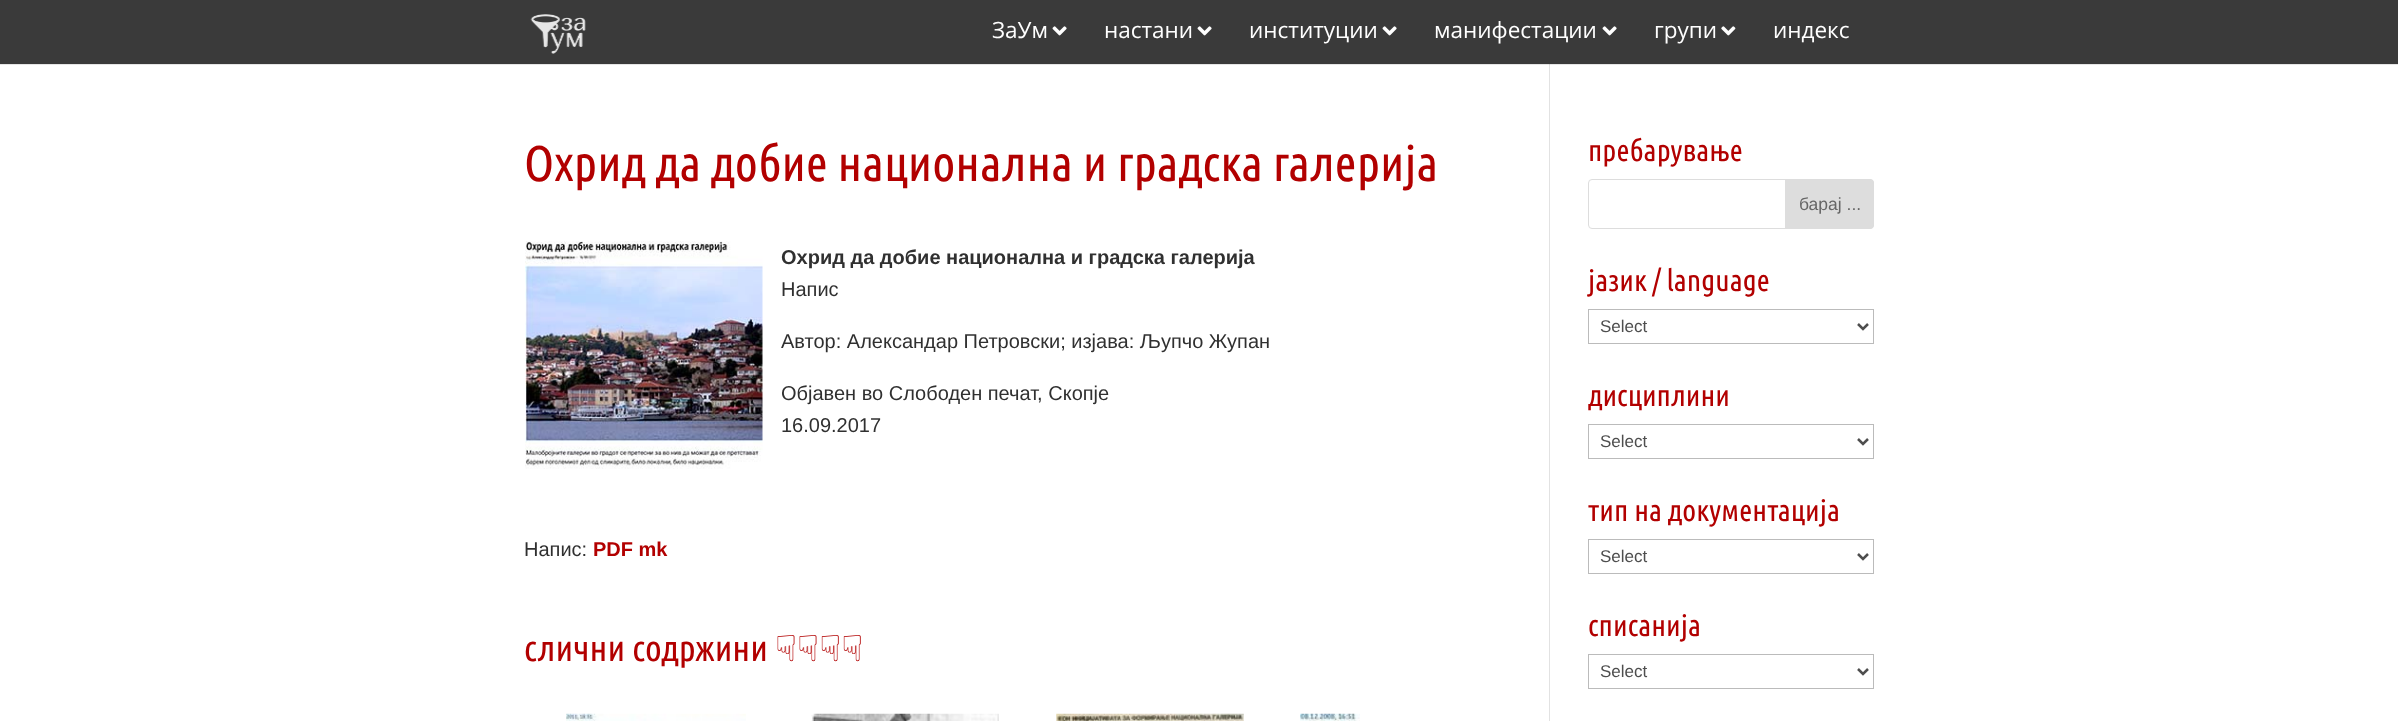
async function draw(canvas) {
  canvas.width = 2398
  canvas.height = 721
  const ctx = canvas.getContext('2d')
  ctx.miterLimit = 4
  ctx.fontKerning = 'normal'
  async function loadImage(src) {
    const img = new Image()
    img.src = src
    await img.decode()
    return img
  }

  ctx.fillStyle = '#fff'
  ctx.fillRect(0, 0, 2398, 721)
  ctx.fillStyle = '#e2e2e2'
  ctx.fillRect(1549, 64, 1, 657)
  ctx.fillStyle = '#0000001a'
  ctx.beginPath()
  ctx.moveTo(0, 64)
  ctx.lineTo(0, 65)
  ctx.lineTo(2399, 65)
  ctx.lineTo(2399, 1)
  ctx.lineTo(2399, 64)
  ctx.closePath()
  ctx.fill()
  ctx.fillStyle = '#3a3a3a'
  ctx.fillRect(0, 0, 2398, 64)
  ctx.drawImage(await loadImage('image0.png'), 530, 14, 56, 40)
  ctx.font = '22.5px Open Sans'
  ctx.fillStyle = '#fff'
  ctx.fillText('ЗаУм', 992, 38)
  ctx.drawImage(await loadImage('image1.png'), 1052, 26, 15, 10)
  ctx.fillText('настани', 1104, 38)
  ctx.drawImage(await loadImage('image1.png'), 1197, 26, 15, 10)
  ctx.fillText('институции', 1249, 38)
  ctx.drawImage(await loadImage('image1.png'), 1382, 26, 15, 10)
  ctx.fillText('манифестации', 1434, 38)
  ctx.drawImage(await loadImage('image1.png'), 1602, 26, 15, 10)
  ctx.fillText('групи', 1654, 38)
  ctx.drawImage(await loadImage('image2.png'), 1721, 26, 15, 10)
  ctx.fillText('индекс', 1773, 38)
  ctx.font = '50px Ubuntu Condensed'
  ctx.fillStyle = '#b20000'
  ctx.fillText('Охрид да добие национална и градска галерија', 524, 181)
  ctx.drawImage(await loadImage('image3.png'), 525, 241, 238, 228)
  ctx.font = 'bold 20px Liberation Sans'
  ctx.fillStyle = '#303030'
  ctx.fillText('Охрид да добие национална и градска галерија', 781, 264)
  ctx.font = '20px Liberation Sans'
  ctx.fillText('Напис', 781, 296)
  ctx.fillText('Автор: Александар Петровски; изјава: Љупчо Жупан', 781, 348)
  ctx.fillText('Објавен во Слободен печат, Скопје', 781, 400)
  ctx.fillText('16.09.2017', 781, 432)
  ctx.fillText('Напис:', 524, 556)
  ctx.font = 'bold 20px Liberation Sans'
  ctx.fillStyle = '#b20000'
  ctx.fillText('PDF mk', 593, 556)
  ctx.font = '36.25px Ubuntu Condensed'
  ctx.fillText('слични содржини', 524, 661)
  ctx.font = '36.25px DejaVu Sans'
  ctx.fillText('☟☟☟☟', 775, 661)
  ctx.drawImage(await loadImage('image4.png'), 566, 713, 180, 8)
  ctx.drawImage(await loadImage('image5.png'), 811, 713, 188, 8)
  ctx.drawImage(await loadImage('image6.png'), 1056, 713, 188, 8)
  ctx.drawImage(await loadImage('image7.png'), 1300, 713, 60, 8)
  ctx.font = '30px Ubuntu Condensed'
  ctx.fillText('пребарување', 1588, 161)
  ctx.beginPath()
  ctx.roundRect(1588.5, 179.5, 285, 49, 3.5)
  ctx.strokeStyle = '#ddd'
  ctx.stroke()
  ctx.fillStyle = '#ddd'
  ctx.beginPath()
  ctx.roundRect(1785.5, 179.5, 88, 49, [0, 3.5, 3.5, 0])
  ctx.fill()
  ctx.stroke()
  ctx.font = '17.5px Liberation Sans'
  ctx.fillStyle = '#666'
  ctx.fillText('барај ...', 1799, 210)
  ctx.font = '30px Ubuntu Condensed'
  ctx.fillStyle = '#b20000'
  ctx.fillText('јазик / language', 1588, 291)
  ctx.strokeStyle = '#bbb'
  ctx.strokeRect(1588.5, 309.5, 285, 34)
  ctx.beginPath()
  ctx.moveTo(1858, 324)
  ctx.lineTo(1863, 329)
  ctx.lineTo(1868, 324)
  ctx.strokeStyle = '#4e4e4e'
  ctx.lineWidth = 2.5
  ctx.stroke()
  ctx.font = '17px Liberation Sans'
  ctx.fillStyle = '#4e4e4e'
  ctx.fillText('Select', 1600, 332)
  ctx.font = '30px Ubuntu Condensed'
  ctx.fillStyle = '#b20000'
  ctx.fillText('дисциплини', 1588, 406)
  ctx.strokeStyle = '#bbb'
  ctx.lineWidth = 1
  ctx.strokeRect(1588.5, 424.5, 285, 34)
  ctx.beginPath()
  ctx.moveTo(1858, 439)
  ctx.lineTo(1863, 444)
  ctx.lineTo(1868, 439)
  ctx.strokeStyle = '#4e4e4e'
  ctx.lineWidth = 2.5
  ctx.stroke()
  ctx.font = '17px Liberation Sans'
  ctx.fillStyle = '#4e4e4e'
  ctx.fillText('Select', 1600, 447)
  ctx.font = '30px Ubuntu Condensed'
  ctx.fillStyle = '#b20000'
  ctx.fillText('тип на документација', 1588, 521)
  ctx.strokeStyle = '#bbb'
  ctx.lineWidth = 1
  ctx.strokeRect(1588.5, 539.5, 285, 34)
  ctx.beginPath()
  ctx.moveTo(1858, 554)
  ctx.lineTo(1863, 559)
  ctx.lineTo(1868, 554)
  ctx.strokeStyle = '#4e4e4e'
  ctx.lineWidth = 2.5
  ctx.stroke()
  ctx.font = '17px Liberation Sans'
  ctx.fillStyle = '#4e4e4e'
  ctx.fillText('Select', 1600, 562)
  ctx.font = '30px Ubuntu Condensed'
  ctx.fillStyle = '#b20000'
  ctx.fillText('списанија', 1588, 636)
  ctx.strokeStyle = '#bbb'
  ctx.lineWidth = 1
  ctx.strokeRect(1588.5, 654.5, 285, 34)
  ctx.beginPath()
  ctx.moveTo(1858, 669)
  ctx.lineTo(1863, 674)
  ctx.lineTo(1868, 669)
  ctx.strokeStyle = '#4e4e4e'
  ctx.lineWidth = 2.5
  ctx.stroke()
  ctx.font = '17px Liberation Sans'
  ctx.fillStyle = '#4e4e4e'
  ctx.fillText('Select', 1600, 677)
}

draw(document.querySelector('canvas'))
